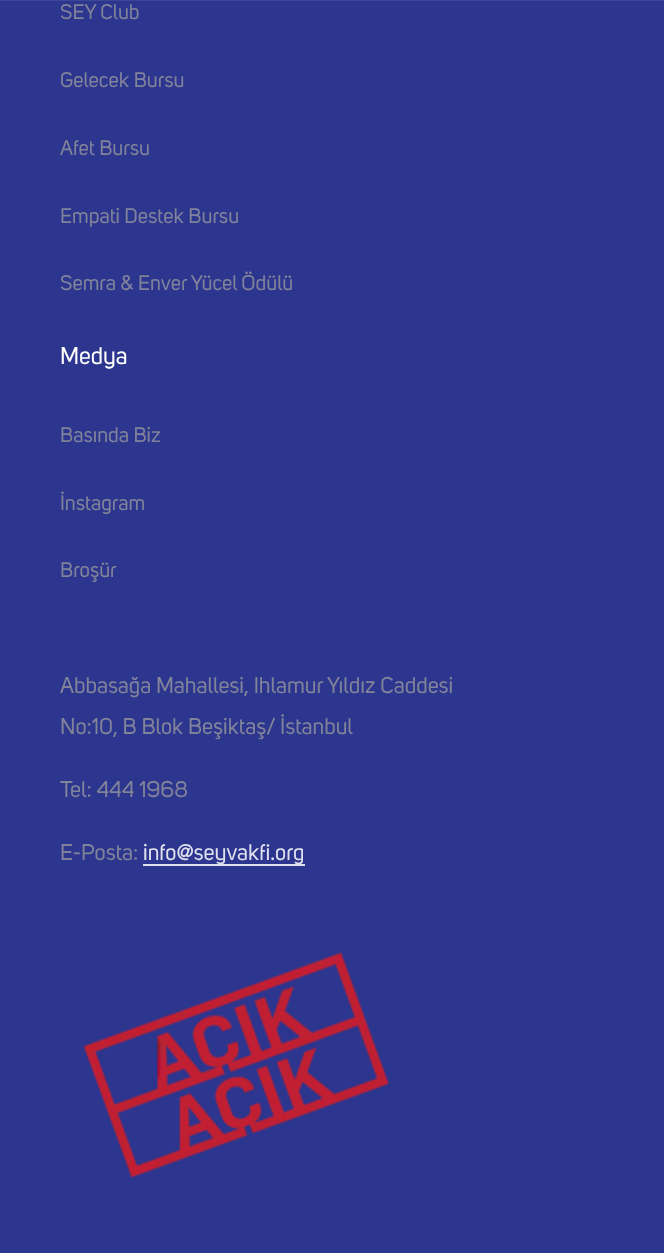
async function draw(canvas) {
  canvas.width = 664
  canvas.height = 1253
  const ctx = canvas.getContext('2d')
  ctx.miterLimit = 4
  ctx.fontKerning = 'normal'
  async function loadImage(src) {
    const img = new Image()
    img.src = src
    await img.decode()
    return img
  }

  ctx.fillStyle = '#2d368f'
  ctx.fillRect(0, 0, 664, 1253)
  ctx.fillStyle = '#3e4698'
  ctx.fillRect(0, 0, 664, 1)
  ctx.font = '21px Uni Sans'
  ctx.fillStyle = '#81839a'
  ctx.fillText('SEY Club', 60, 19)
  ctx.fillText('Gelecek Bursu', 60, 87)
  ctx.fillText('Afet Bursu', 60, 155)
  ctx.fillText('Empati Destek Bursu', 60, 223)
  ctx.fillText('Semra & Enver Yücel Ödülü', 60, 290)
  ctx.font = '24px Uni Sans'
  ctx.fillStyle = '#fff'
  ctx.fillText('Medya', 60, 364)
  ctx.font = '21px Uni Sans'
  ctx.fillStyle = '#81839a'
  ctx.fillText('Basında Biz', 60, 442)
  ctx.fillText('İnstagram', 60, 510)
  ctx.fillText('Broşür', 60, 577)
  ctx.font = '22.5px Uni Sans'
  ctx.fillText('Abbasağa Mahallesi, Ihlamur Yıldız Caddesi', 60, 693)
  ctx.fillText('No:10, B Blok Beşiktaş/ İstanbul', 60, 734)
  ctx.fillText('Tel: 444 1968', 60, 797)
  ctx.fillText('E-Posta:', 60, 860)
  ctx.fillStyle = '#e0e1ee'
  ctx.fillRect(143, 864, 162, 2)
  ctx.fillText('info@seyvakfi.org', 143, 860)
  ctx.drawImage(await loadImage('image0.png'), 83, 952, 307, 226)
}

draw(document.querySelector('canvas'))
